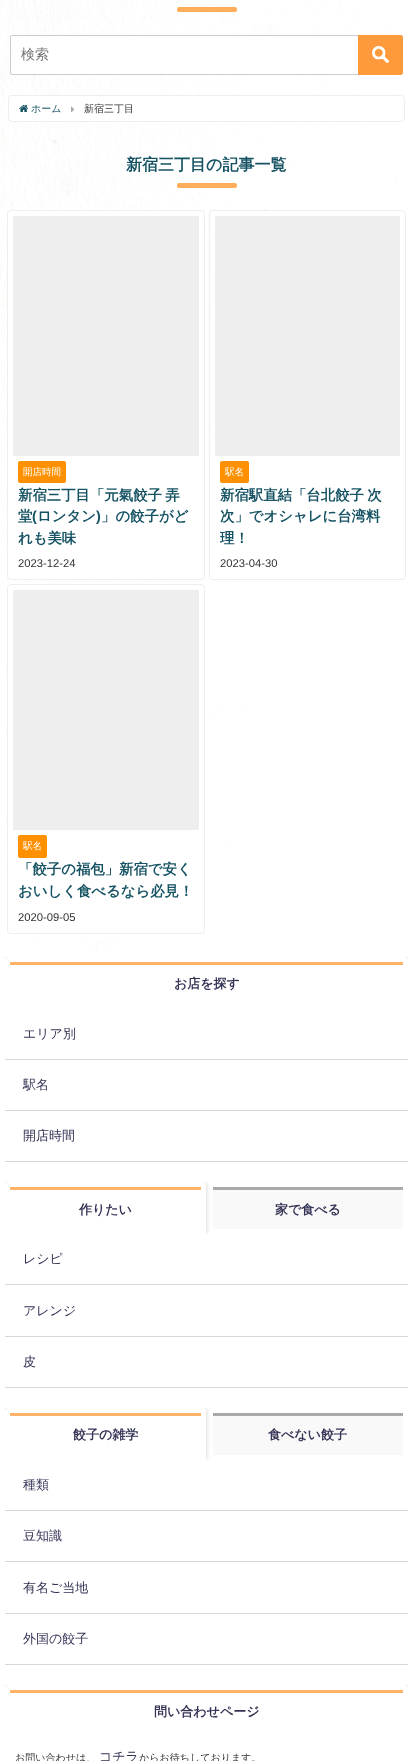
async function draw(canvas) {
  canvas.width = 413
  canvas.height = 1761
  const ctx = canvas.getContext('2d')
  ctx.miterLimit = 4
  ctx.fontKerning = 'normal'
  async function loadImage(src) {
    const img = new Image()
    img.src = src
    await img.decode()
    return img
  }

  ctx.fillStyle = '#fff'
  ctx.fillRect(0, 0, 413, 1761)
  ctx.drawImage(await loadImage('image0.png'), 0, 0, 408, 952)
  ctx.fillStyle = '#ffad5a'
  ctx.beginPath()
  ctx.roundRect(177, 7, 60, 5, 2)
  ctx.fill()
  ctx.fillStyle = '#fff'
  ctx.beginPath()
  ctx.roundRect(10.5, 35.5, 392, 39, 1.5)
  ctx.fill()
  ctx.strokeStyle = '#ccc'
  ctx.stroke()
  ctx.font = '500 14px WenQuanYi Zen Hei'
  ctx.fillStyle = '#757575'
  ctx.fillText('検索', 21, 59)
  ctx.fillStyle = '#ff9a3c'
  ctx.beginPath()
  ctx.roundRect(358, 35, 45, 40, [0, 3, 3, 0])
  ctx.fill()
  ctx.drawImage(await loadImage('image1.png'), 372, 46, 17, 17)
  ctx.fillStyle = '#fff'
  ctx.beginPath()
  ctx.roundRect(8.5, 95.5, 396, 26, 3.5)
  ctx.fill()
  ctx.strokeStyle = '#eee'
  ctx.stroke()
  ctx.drawImage(await loadImage('image2.png'), 19, 104, 10, 8)
  ctx.font = '500 10px WenQuanYi Zen Hei'
  ctx.fillStyle = '#155263'
  ctx.fillText('ホーム', 31, 112)
  ctx.drawImage(await loadImage('image3.png'), 71, 106, 4, 7)
  ctx.fillStyle = '#333'
  ctx.fillText('新宿三丁目', 84, 112)
  ctx.font = 'bold 16px WenQuanYi Zen Hei'
  ctx.fillStyle = '#155263'
  ctx.fillText('新宿三丁目の記事一覧', 126, 170)
  ctx.fillStyle = '#ffad5a'
  ctx.beginPath()
  ctx.roundRect(177, 183, 60, 5, 2)
  ctx.fill()
  ctx.fillStyle = '#fff'
  ctx.beginPath()
  ctx.roundRect(7.5, 210.5, 197, 369, 3.5)
  ctx.fill()
  ctx.stroke()
  ctx.fillStyle = '#eee'
  ctx.fillRect(13, 216, 186, 240)
  ctx.fillStyle = '#ff9000'
  ctx.beginPath()
  ctx.roundRect(18, 461, 48, 22, 2)
  ctx.fill()
  ctx.font = '500 9.5px WenQuanYi Zen Hei'
  ctx.fillStyle = '#fff'
  ctx.fillText('開店時間', 23, 475)
  ctx.wordSpacing = '-1px'
  ctx.font = 'bold 14.4px WenQuanYi Zen Hei'
  ctx.fillStyle = '#155263'
  ctx.fillText('新宿三丁目「元氣餃子 弄', 18, 500)
  ctx.wordSpacing = '0px'
  ctx.fillText('堂', 18, 521)
  ctx.font = 'bold 14.4px Liberation Sans'
  ctx.fillText('(', 32, 521)
  ctx.font = 'bold 14.4px WenQuanYi Zen Hei'
  ctx.fillText('ロンタン', 37, 521)
  ctx.font = 'bold 14.4px Liberation Sans'
  ctx.fillText(')', 96, 521)
  ctx.font = 'bold 14.4px WenQuanYi Zen Hei'
  ctx.fillText('」の餃子がど', 101, 521)
  ctx.fillText('れも美味', 18, 543)
  ctx.font = '11.25px Liberation Sans'
  ctx.fillStyle = '#333'
  ctx.fillText('2023-12-24', 18, 567)
  ctx.fillStyle = '#fff'
  ctx.beginPath()
  ctx.roundRect(209.5, 210.5, 196, 369, 3.5)
  ctx.fill()
  ctx.stroke()
  ctx.fillStyle = '#eee'
  ctx.fillRect(215, 216, 185, 240)
  ctx.fillStyle = '#ff9000'
  ctx.beginPath()
  ctx.roundRect(220, 461, 29, 22, 2)
  ctx.fill()
  ctx.font = '500 9.5px WenQuanYi Zen Hei'
  ctx.fillStyle = '#fff'
  ctx.fillText('駅名', 225, 475)
  ctx.wordSpacing = '-1px'
  ctx.font = 'bold 14.4px WenQuanYi Zen Hei'
  ctx.fillStyle = '#155263'
  ctx.fillText('新宿駅直結「台北餃子 次', 220, 500)
  ctx.wordSpacing = '0px'
  ctx.fillText('次」でオシャレに台湾料', 220, 521)
  ctx.fillText('理！', 220, 543)
  ctx.font = '11.25px Liberation Sans'
  ctx.fillStyle = '#333'
  ctx.fillText('2023-04-30', 220, 567)
  ctx.fillStyle = '#fff'
  ctx.beginPath()
  ctx.roundRect(7.5, 584.5, 197, 349, 3.5)
  ctx.fill()
  ctx.stroke()
  ctx.fillStyle = '#eee'
  ctx.fillRect(13, 590, 186, 240)
  ctx.fillStyle = '#ff9000'
  ctx.beginPath()
  ctx.roundRect(18, 835, 29, 23, 2)
  ctx.fill()
  ctx.font = '500 9.5px WenQuanYi Zen Hei'
  ctx.fillStyle = '#fff'
  ctx.fillText('駅名', 23, 849)
  ctx.font = 'bold 14.4px WenQuanYi Zen Hei'
  ctx.fillStyle = '#155263'
  ctx.fillText('「餃子の福包」新宿で安く', 18, 874)
  ctx.fillText('おいしく食べるなら必見！', 18, 896)
  ctx.font = '11.25px Liberation Sans'
  ctx.fillStyle = '#333'
  ctx.fillText('2020-09-05', 18, 921)
  ctx.save()
  ctx.beginPath()
  ctx.rect(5, 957, 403, 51)
  ctx.clip()
  ctx.beginPath()
  ctx.moveTo(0, 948)
  ctx.lineTo(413, 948)
  ctx.lineTo(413, 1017)
  ctx.lineTo(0, 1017)
  ctx.closePath()
  ctx.moveTo(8, 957)
  ctx.lineTo(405, 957)
  ctx.bezierCurveTo(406.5, 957, 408, 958.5, 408, 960)
  ctx.lineTo(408, 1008)
  ctx.lineTo(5, 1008)
  ctx.lineTo(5, 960)
  ctx.bezierCurveTo(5, 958.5, 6.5, 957, 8, 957)
  ctx.closePath()
  ctx.clip('evenodd')
  ctx.fillStyle = '#00000033'
  ctx.filter = 'blur(2.5px)'
  ctx.beginPath()
  ctx.roundRect(5, 957, 403, 51, 3)
  ctx.fill()
  ctx.filter = 'none'
  ctx.restore()
  ctx.fillStyle = '#ffb368'
  ctx.fillRect(10, 962, 393, 3)
  ctx.font = 'bold 13px WenQuanYi Zen Hei'
  ctx.fillStyle = '#335'
  ctx.fillText('お店を探す', 174, 988)
  ctx.fillStyle = '#d6d6d6'
  ctx.fillRect(5, 1059, 403, 1)
  ctx.font = '500 13px WenQuanYi Zen Hei'
  ctx.fillStyle = '#335'
  ctx.fillText('エリア別', 23, 1038)
  ctx.fillStyle = '#d6d6d6'
  ctx.fillRect(5, 1110, 403, 1)
  ctx.fillStyle = '#335'
  ctx.fillText('駅名', 23, 1089)
  ctx.fillStyle = '#d6d6d6'
  ctx.fillRect(5, 1161, 403, 1)
  ctx.fillStyle = '#335'
  ctx.fillText('開店時間', 23, 1140)
  ctx.fillStyle = '#f9f9f9'
  ctx.fillRect(213, 1190, 190, 39)
  ctx.fillStyle = '#aaa'
  ctx.fillRect(213, 1187, 190, 3)
  ctx.save()
  ctx.beginPath()
  ctx.rect(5, 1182, 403, 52)
  ctx.clip()
  ctx.beginPath()
  ctx.moveTo(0, 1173)
  ctx.lineTo(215, 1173)
  ctx.lineTo(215, 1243)
  ctx.lineTo(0, 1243)
  ctx.closePath()
  ctx.moveTo(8, 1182)
  ctx.lineTo(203, 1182)
  ctx.bezierCurveTo(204.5, 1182, 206, 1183.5, 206, 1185)
  ctx.lineTo(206, 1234)
  ctx.lineTo(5, 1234)
  ctx.lineTo(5, 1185)
  ctx.bezierCurveTo(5, 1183.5, 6.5, 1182, 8, 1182)
  ctx.closePath()
  ctx.clip('evenodd')
  ctx.fillStyle = '#00000033'
  ctx.filter = 'blur(2.5px)'
  ctx.beginPath()
  ctx.roundRect(5, 1182, 201, 52, 3)
  ctx.fill()
  ctx.filter = 'none'
  ctx.restore()
  ctx.fillStyle = '#ffb368'
  ctx.fillRect(10, 1187, 191, 3)
  ctx.font = 'bold 13px WenQuanYi Zen Hei'
  ctx.fillStyle = '#335'
  ctx.fillText('作りたい', 79, 1214)
  ctx.fillText('家で食べる', 275, 1214)
  ctx.fillStyle = '#d6d6d6'
  ctx.fillRect(5, 1284, 403, 1)
  ctx.font = '500 13px WenQuanYi Zen Hei'
  ctx.fillStyle = '#335'
  ctx.fillText('レシピ', 23, 1263)
  ctx.fillStyle = '#d6d6d6'
  ctx.fillRect(5, 1336, 403, 1)
  ctx.fillStyle = '#335'
  ctx.fillText('アレンジ', 23, 1315)
  ctx.fillStyle = '#d6d6d6'
  ctx.fillRect(5, 1387, 403, 1)
  ctx.fillStyle = '#335'
  ctx.fillText('皮', 23, 1366)
  ctx.fillStyle = '#f9f9f9'
  ctx.fillRect(213, 1416, 190, 39)
  ctx.fillStyle = '#aaa'
  ctx.fillRect(213, 1413, 190, 3)
  ctx.save()
  ctx.beginPath()
  ctx.rect(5, 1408, 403, 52)
  ctx.clip()
  ctx.beginPath()
  ctx.moveTo(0, 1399)
  ctx.lineTo(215, 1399)
  ctx.lineTo(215, 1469)
  ctx.lineTo(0, 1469)
  ctx.closePath()
  ctx.moveTo(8, 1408)
  ctx.lineTo(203, 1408)
  ctx.bezierCurveTo(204.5, 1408, 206, 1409.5, 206, 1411)
  ctx.lineTo(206, 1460)
  ctx.lineTo(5, 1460)
  ctx.lineTo(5, 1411)
  ctx.bezierCurveTo(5, 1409.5, 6.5, 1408, 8, 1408)
  ctx.closePath()
  ctx.clip('evenodd')
  ctx.fillStyle = '#00000033'
  ctx.filter = 'blur(2.5px)'
  ctx.beginPath()
  ctx.roundRect(5, 1408, 201, 52, 3)
  ctx.fill()
  ctx.filter = 'none'
  ctx.restore()
  ctx.fillStyle = '#ffb368'
  ctx.fillRect(10, 1413, 191, 3)
  ctx.font = 'bold 13px WenQuanYi Zen Hei'
  ctx.fillStyle = '#335'
  ctx.fillText('餃子の雑学', 73, 1439)
  ctx.fillText('食べない餃子', 268, 1439)
  ctx.fillStyle = '#d6d6d6'
  ctx.fillRect(5, 1510, 403, 1)
  ctx.font = '500 13px WenQuanYi Zen Hei'
  ctx.fillStyle = '#335'
  ctx.fillText('種類', 23, 1489)
  ctx.fillStyle = '#d6d6d6'
  ctx.fillRect(5, 1561, 403, 1)
  ctx.fillStyle = '#335'
  ctx.fillText('豆知識', 23, 1540)
  ctx.fillStyle = '#d6d6d6'
  ctx.fillRect(5, 1613, 403, 1)
  ctx.fillStyle = '#335'
  ctx.fillText('有名ご当地', 23, 1592)
  ctx.fillStyle = '#d6d6d6'
  ctx.fillRect(5, 1664, 403, 1)
  ctx.fillStyle = '#335'
  ctx.fillText('外国の餃子', 23, 1643)
  ctx.save()
  ctx.beginPath()
  ctx.rect(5, 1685, 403, 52)
  ctx.clip()
  ctx.beginPath()
  ctx.moveTo(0, 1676)
  ctx.lineTo(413, 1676)
  ctx.lineTo(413, 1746)
  ctx.lineTo(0, 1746)
  ctx.closePath()
  ctx.moveTo(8, 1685)
  ctx.lineTo(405, 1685)
  ctx.bezierCurveTo(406.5, 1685, 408, 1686.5, 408, 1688)
  ctx.lineTo(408, 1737)
  ctx.lineTo(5, 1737)
  ctx.lineTo(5, 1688)
  ctx.bezierCurveTo(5, 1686.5, 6.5, 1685, 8, 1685)
  ctx.closePath()
  ctx.clip('evenodd')
  ctx.fillStyle = '#00000033'
  ctx.filter = 'blur(2.5px)'
  ctx.beginPath()
  ctx.roundRect(5, 1685, 403, 52, 3)
  ctx.fill()
  ctx.filter = 'none'
  ctx.restore()
  ctx.fillStyle = '#ffb368'
  ctx.fillRect(10, 1690, 393, 3)
  ctx.font = 'bold 13px WenQuanYi Zen Hei'
  ctx.fillStyle = '#335'
  ctx.fillText('問い合わせページ', 154, 1716)
  ctx.font = '500 10px WenQuanYi Zen Hei'
  ctx.fillStyle = '#333'
  ctx.fillText('お問い合わせは、', 15, 1761)
  ctx.font = '500 13px WenQuanYi Zen Hei'
  ctx.fillStyle = '#335'
  ctx.fillText('コチラ', 99, 1761)
  ctx.font = '500 10px WenQuanYi Zen Hei'
  ctx.fillStyle = '#333'
  ctx.fillText('からお待ちしております。', 139, 1761)
}

draw(document.querySelector('canvas'))
